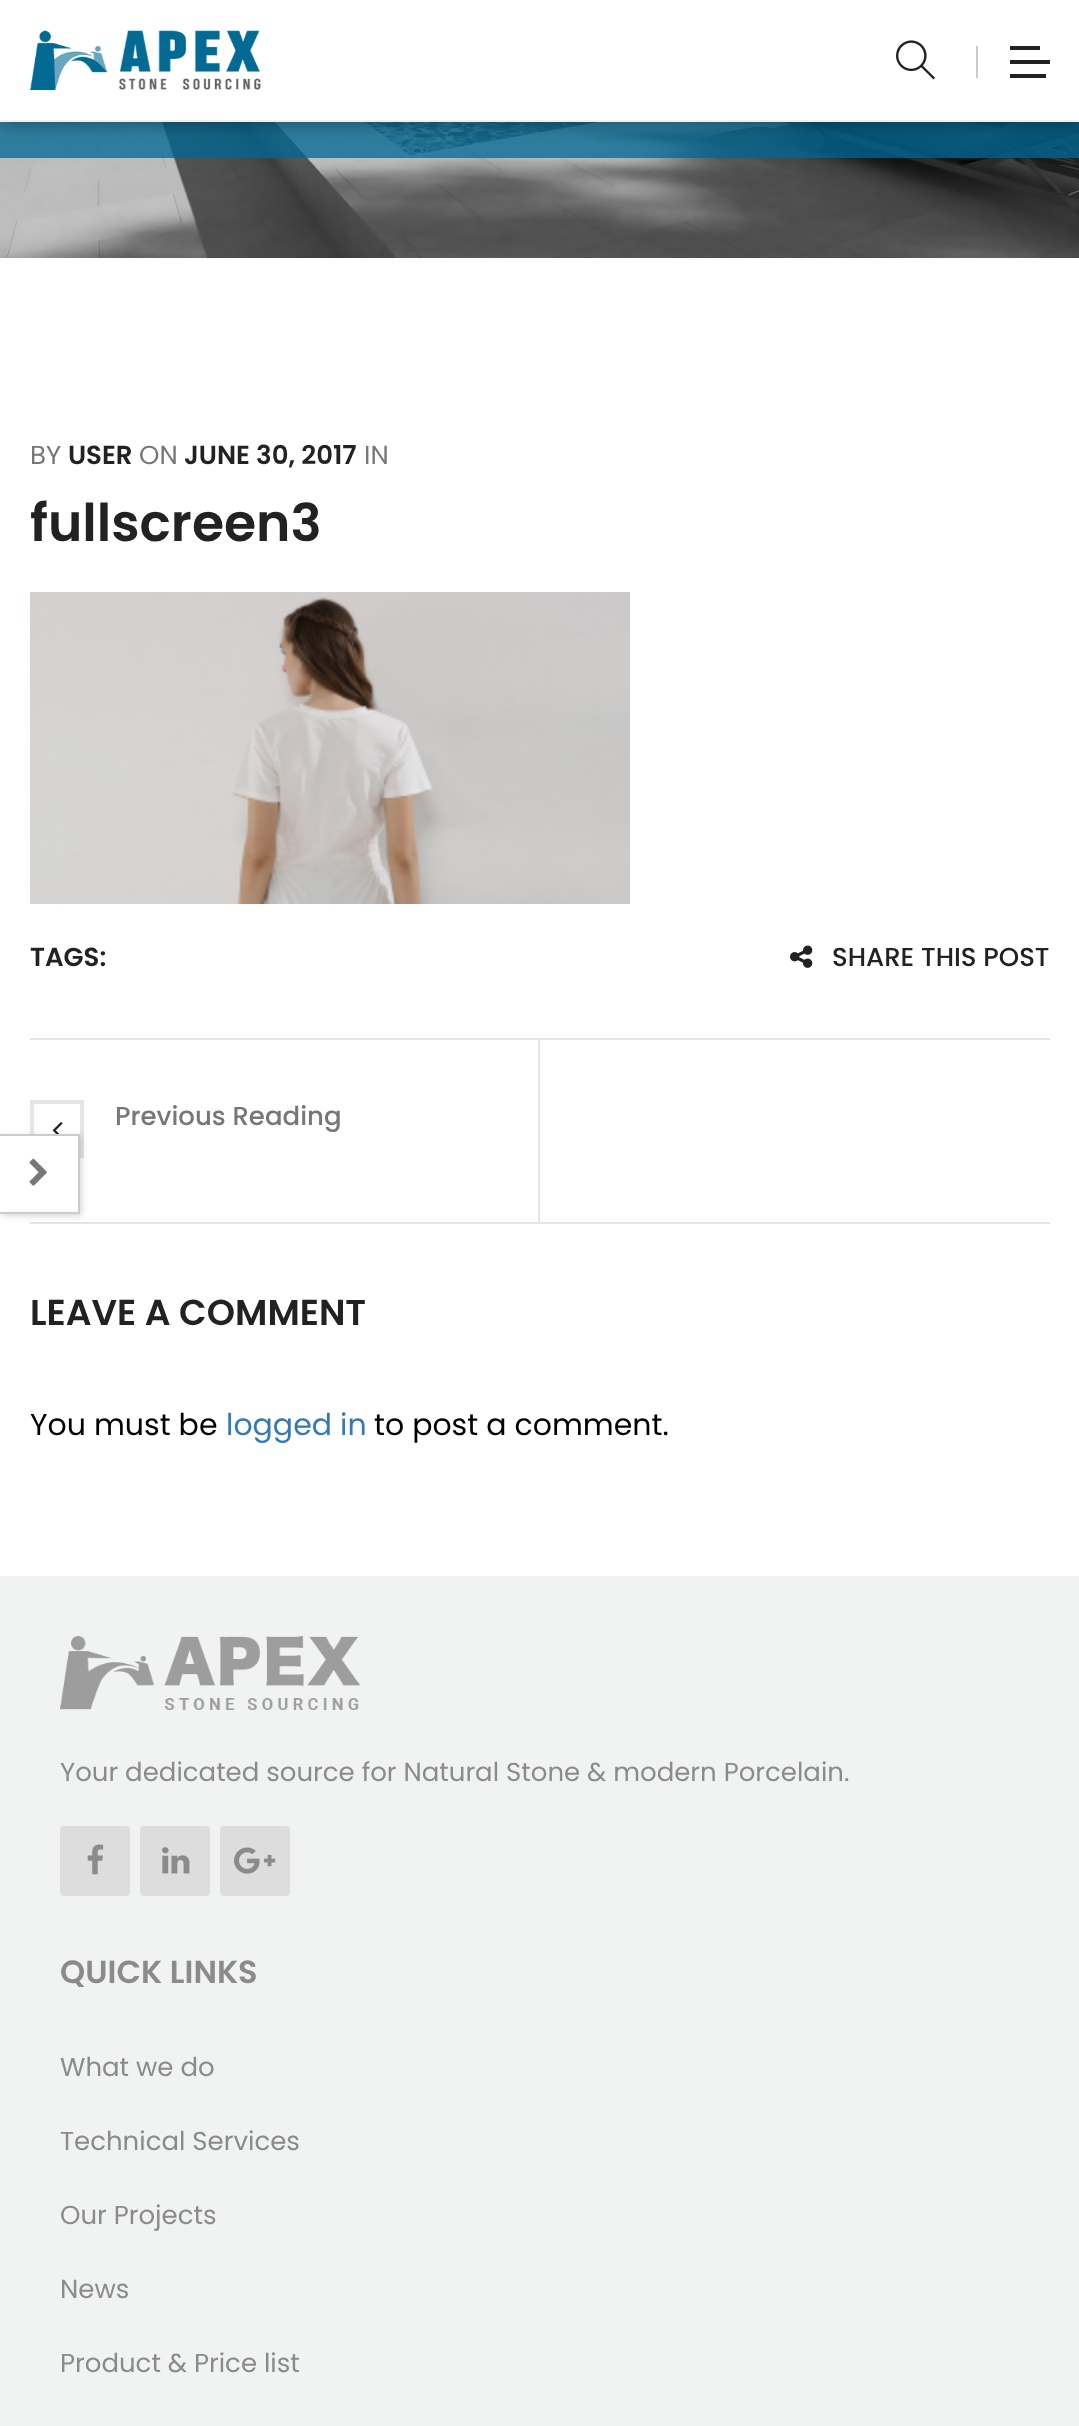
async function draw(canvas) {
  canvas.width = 1079
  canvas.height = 2426
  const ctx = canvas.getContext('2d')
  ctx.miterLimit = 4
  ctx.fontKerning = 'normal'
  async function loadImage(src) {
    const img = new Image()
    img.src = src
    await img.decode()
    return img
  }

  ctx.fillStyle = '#fff'
  ctx.fillRect(0, 0, 1079, 2426)
  ctx.drawImage(await loadImage('image2.png'), 0, 122, 1079, 136)
  ctx.fillStyle = '#006894bf'
  ctx.fillRect(0, 122, 1079, 36)
  ctx.fillStyle = '#00000066'
  ctx.filter = 'blur(10px)'
  ctx.beginPath()
  ctx.rect(0, 0, 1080, 122)
  ctx.fill()
  ctx.filter = 'none'
  ctx.fillStyle = '#fff'
  ctx.fillRect(0, 0, 1079, 120)
  ctx.fillStyle = '#f0f0f0'
  ctx.fillRect(0, 120, 1079, 2)
  ctx.drawImage(await loadImage('image0.png'), 30, 30, 231, 60)
  ctx.drawImage(await loadImage('image1.png'), 896, 40, 39, 40)
  ctx.fillStyle = '#ccc'
  ctx.fillRect(976, 46, 2, 32)
  ctx.fillStyle = '#222'
  ctx.fillRect(1010, 46, 30, 4)
  ctx.fillRect(1010, 60, 40, 4)
  ctx.fillRect(1010, 74, 36, 4)
  ctx.font = '26px Poppins'
  ctx.fillStyle = '#777'
  ctx.fillText('BY', 30, 464)
  ctx.font = '600 26px Poppins'
  ctx.fillStyle = '#222'
  ctx.fillText('USER', 68, 464)
  ctx.font = '26px Poppins'
  ctx.fillStyle = '#777'
  ctx.fillText('ON', 139, 464)
  ctx.font = '600 26px Poppins'
  ctx.fillStyle = '#222'
  ctx.fillText('JUNE 30, 2017', 184, 464)
  ctx.font = '26px Poppins'
  ctx.fillStyle = '#777'
  ctx.fillText('IN', 364, 464)
  ctx.font = '600 52px Poppins'
  ctx.fillStyle = '#222'
  ctx.fillText('fullscreen3', 30, 541)
  ctx.drawImage(await loadImage('image3.png'), 30, 592, 600, 312)
  ctx.font = '600 26px Poppins'
  ctx.fillText('TAGS:', 30, 966)
  ctx.drawImage(await loadImage('image4.png'), 790, 945, 23, 23)
  ctx.font = '500 26px Poppins'
  ctx.fillText('SHARE THIS POST', 832, 966)
  ctx.fillStyle = '#e5e5e5'
  ctx.fillRect(30, 1038, 1020, 2)
  ctx.fillRect(30, 1222, 1020, 2)
  ctx.fillRect(538, 1040, 2, 182)
  ctx.strokeStyle = '#e5e5e5'
  ctx.lineWidth = 4
  ctx.strokeRect(32, 1102, 50, 54)
  ctx.drawImage(await loadImage('image5.png'), 52, 1122, 11, 12)
  ctx.fillStyle = '#777'
  ctx.fillText('Previous Reading', 115, 1125)
  ctx.font = '600 36px Poppins'
  ctx.fillStyle = '#222'
  ctx.fillText('LEAVE A COMMENT', 30, 1325)
  ctx.font = '30px Poppins'
  ctx.fillStyle = '#000'
  ctx.fillText('You must be', 30, 1435)
  ctx.fillStyle = '#337ab7'
  ctx.fillText('logged in', 226, 1435)
  ctx.fillStyle = '#000'
  ctx.fillText('to post a comment.', 374, 1435)
  ctx.fillStyle = '#00000026'
  ctx.filter = 'blur(3px)'
  ctx.beginPath()
  ctx.rect(2, 1136, 80, 80)
  ctx.fill()
  ctx.filter = 'none'
  ctx.fillStyle = '#fff'
  ctx.fillRect(0, 1136, 78, 76)
  ctx.fillStyle = '#ccc'
  ctx.fillRect(0, 1134, 80, 2)
  ctx.fillRect(78, 1134, 2, 80)
  ctx.fillRect(0, 1212, 80, 2)
  ctx.drawImage(await loadImage('image6.png'), 29, 1158, 18, 28)
  ctx.fillStyle = '#f1f2f2'
  ctx.fillRect(0, 1576, 1079, 850)
  ctx.drawImage(await loadImage('image7.png'), 60, 1636, 300, 74)
  ctx.font = '26px Poppins'
  ctx.fillStyle = '#8b8b8b'
  ctx.fillText('Your dedicated source for Natural Stone & modern Porcelain.', 60, 1781)
  ctx.fillStyle = '#ddd'
  ctx.beginPath()
  ctx.roundRect(60, 1826, 70, 70, 4)
  ctx.fill()
  ctx.drawImage(await loadImage('image8.png'), 87, 1844, 17, 31)
  ctx.beginPath()
  ctx.roundRect(140, 1826, 70, 70, 4)
  ctx.fill()
  ctx.drawImage(await loadImage('image9.png'), 162, 1847, 28, 27)
  ctx.beginPath()
  ctx.roundRect(220, 1826, 70, 70, 4)
  ctx.fill()
  ctx.drawImage(await loadImage('image10.png'), 234, 1847, 42, 27)
  ctx.font = '600 32px Poppins'
  ctx.fillStyle = '#8b8b8b'
  ctx.fillText('QUICK LINKS', 60, 1983)
  ctx.font = '26px Poppins'
  ctx.fillText('What we do', 60, 2076)
  ctx.fillText('Technical Services', 60, 2150)
  ctx.fillText('Our Projects', 60, 2224)
  ctx.fillText('News', 60, 2298)
  ctx.fillText('Product & Price list', 60, 2372)
}

draw(document.querySelector('canvas'))
